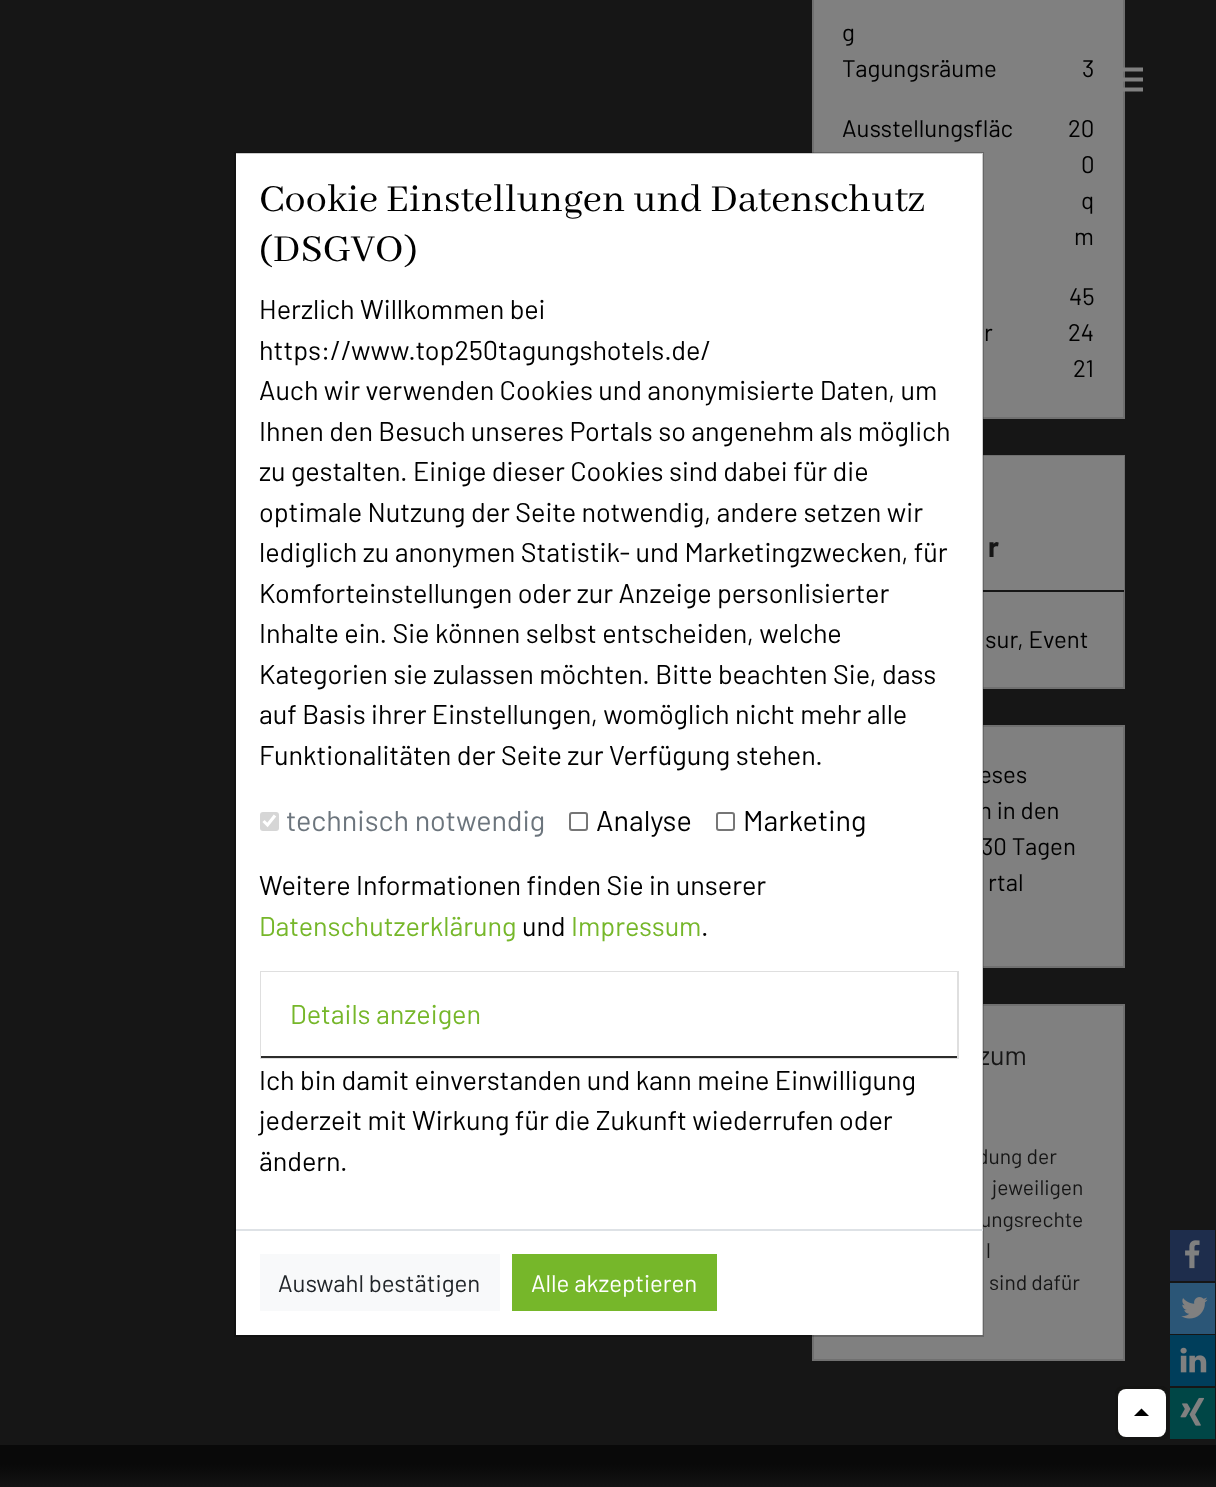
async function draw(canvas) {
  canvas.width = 1216
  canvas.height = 1487
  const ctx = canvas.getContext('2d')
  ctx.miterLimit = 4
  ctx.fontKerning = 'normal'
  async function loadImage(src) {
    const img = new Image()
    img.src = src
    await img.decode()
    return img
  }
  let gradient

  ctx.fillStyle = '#161616'
  ctx.fillRect(0, 0, 1216, 1487)
  ctx.fillStyle = '#808080'
  ctx.beginPath()
  ctx.rect(813, -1, 311, 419)
  ctx.fill()
  ctx.strokeStyle = '#707070'
  ctx.lineWidth = 2
  ctx.stroke()
  ctx.font = '24px Barlow'
  ctx.fillStyle = '#000'
  ctx.fillText('g', 842, 41)
  ctx.fillText('Tagungsräume', 842, 77)
  ctx.fillText('3', 1082, 77)
  ctx.fillText('Ausstellungsfläc', 842, 137)
  ctx.fillText('20', 1068, 137)
  ctx.fillText('0', 1081, 173)
  ctx.fillText('q', 1081, 209)
  ctx.fillText('m', 1074, 245)
  ctx.fillText('45', 1069, 305)
  ctx.fillText('r', 984, 341)
  ctx.fillText('24', 1068, 341)
  ctx.fillText('21', 1073, 377)
  ctx.fillStyle = '#808080'
  ctx.fillRect(983, 592, 140, 95)
  ctx.strokeRect(813, 456, 311, 232)
  ctx.fillRect(983, 456, 141, 134)
  ctx.fillStyle = '#161616'
  ctx.fillRect(1123, 590, 1, 2)
  ctx.font = 'bold 28.75px Barlow'
  ctx.fillText('r', 988, 557)
  ctx.font = '24px Barlow'
  ctx.fillStyle = '#000'
  ctx.fillText('sur, Event', 985, 648)
  ctx.fillStyle = '#808080'
  ctx.fillRect(983, 727, 140, 239)
  ctx.strokeRect(813, 726, 311, 241)
  ctx.fillStyle = '#000'
  ctx.fillText('eses', 979, 783)
  ctx.fillText('n in den', 979, 819)
  ctx.fillText('30 Tagen', 981, 855)
  ctx.fillText('rtal', 988, 891)
  ctx.fillStyle = '#808080'
  ctx.beginPath()
  ctx.rect(813, 1005, 311, 355)
  ctx.fill()
  ctx.stroke()
  ctx.font = '27px Barlow'
  ctx.fillStyle = '#161616'
  ctx.fillText('zum', 978, 1065)
  ctx.font = '21px Barlow'
  ctx.fillText('dung der', 977, 1164)
  ctx.fillText('jeweiligen', 992, 1195)
  ctx.fillText('ungsrechte', 980, 1227)
  ctx.fillText('l', 986, 1258)
  ctx.fillText('sind dafür', 989, 1290)
  ctx.fillStyle = '#808080'
  ctx.beginPath()
  ctx.moveTo(1107, 67.5)
  ctx.lineTo(1143, 67.5)
  ctx.lineTo(1143, 71.5)
  ctx.lineTo(1107, 71.5)
  ctx.closePath()
  ctx.moveTo(1107, 81.5)
  ctx.lineTo(1107, 77.5)
  ctx.lineTo(1143, 77.5)
  ctx.lineTo(1143, 81.5)
  ctx.closePath()
  ctx.moveTo(1107, 91.5)
  ctx.lineTo(1107, 87.5)
  ctx.lineTo(1143, 87.5)
  ctx.lineTo(1143, 91.5)
  ctx.closePath()
  ctx.fill()
  ctx.fillStyle = '#fff'
  ctx.fillRect(236, 153, 747, 1182)
  ctx.strokeStyle = '#00000033'
  ctx.strokeRect(235, 153, 748, 1183)
  ctx.font = '42px Abhaya Libre'
  ctx.fillStyle = '#000'
  ctx.fillText('Cookie Einstellungen und Datenschutz', 259, 211)
  ctx.fillText('(DSGVO)', 259, 261)
  ctx.font = '27px Barlow'
  ctx.fillText('Herzlich Willkommen bei', 259, 319)
  ctx.fillText('https://www.top250tagungshotels.de/', 259, 360)
  ctx.fillText('Auch wir verwenden Cookies und anonymisierte Daten, um', 259, 400)
  ctx.fillText('Ihnen den Besuch unseres Portals so angenehm als möglich', 259, 441)
  ctx.fillText('zu gestalten. Einige dieser Cookies sind dabei für die', 259, 481)
  ctx.fillText('optimale Nutzung der Seite notwendig, andere setzen wir', 259, 522)
  ctx.fillText('lediglich zu anonymen Statistik- und Marketingzwecken, für', 259, 562)
  ctx.fillText('Komforteinstellungen oder zur Anzeige personlisierter', 259, 603)
  ctx.fillText('Inhalte ein. Sie können selbst entscheiden, welche', 259, 643)
  ctx.fillText('Kategorien sie zulassen möchten. Bitte beachten Sie, dass', 259, 684)
  ctx.fillText('auf Basis ihrer Einstellungen, womöglich nicht mehr alle', 259, 724)
  ctx.fillText('Funktionalitäten der Seite zur Verfügung stehen.', 259, 765)
  ctx.fillStyle = '#d6d6d6'
  ctx.beginPath()
  ctx.roundRect(260, 812, 19, 19, 3)
  ctx.fill()
  ctx.beginPath()
  ctx.moveTo(263.5, 821)
  ctx.lineTo(267.5, 825)
  ctx.lineTo(275, 815.5)
  ctx.strokeStyle = '#fff'
  ctx.lineWidth = 3.1
  ctx.stroke()
  ctx.font = '28.75px Barlow'
  ctx.fillStyle = '#6c757d'
  ctx.fillText('technisch notwendig', 286, 831)
  ctx.beginPath()
  ctx.roundRect(570, 813, 17, 17, 2)
  ctx.strokeStyle = '#767676'
  ctx.lineWidth = 2
  ctx.stroke()
  ctx.fillStyle = '#000'
  ctx.fillText('Analyse', 596, 831)
  ctx.beginPath()
  ctx.roundRect(717, 813, 17, 17, 2)
  ctx.stroke()
  ctx.fillText('Marketing', 743, 831)
  ctx.font = '27px Barlow'
  ctx.fillText('Weitere Informationen finden Sie in unserer', 259, 895)
  ctx.fillStyle = '#76b72a'
  ctx.fillText('Datenschutzerklärung', 259, 936)
  ctx.fillStyle = '#000'
  ctx.fillText('und', 522, 936)
  ctx.fillStyle = '#76b72a'
  ctx.fillText('Impressum', 571, 936)
  ctx.fillStyle = '#000'
  ctx.fillText('.', 701, 936)
  ctx.strokeStyle = '#dfdfdf'
  ctx.strokeRect(261, 972, 697, 86)
  ctx.fillStyle = '#fff'
  ctx.fillRect(261, 972, 696, 84)
  ctx.fillStyle = '#2c2c2b'
  ctx.fillRect(261, 1056, 696, 2)
  ctx.fillStyle = '#76b72a'
  ctx.fillText('Details anzeigen', 290, 1024)
  ctx.fillStyle = '#000'
  ctx.fillText('Ich bin damit einverstanden und kann meine Einwilligung', 259, 1090)
  ctx.fillText('jederzeit mit Wirkung für die Zukunft wiederrufen oder', 259, 1130)
  ctx.fillText('ändern.', 259, 1171)
  ctx.fillStyle = '#dee2e6'
  ctx.fillRect(236, 1229, 747, 2)
  ctx.fillStyle = '#f8f9fa'
  ctx.fillRect(260, 1254, 240, 57)
  ctx.font = '24px Barlow'
  ctx.fillStyle = '#212529'
  ctx.fillText('Auswahl bestätigen', 278, 1292)
  ctx.fillStyle = '#76b72a'
  ctx.fillRect(512, 1254, 205, 57)
  ctx.fillStyle = '#fff'
  ctx.fillText('Alle akzeptieren', 531, 1292)
  ctx.fillStyle = '#141413'
  ctx.beginPath()
  ctx.roundRect(1115, 1386, 54, 54, 8)
  ctx.fill()
  ctx.fillStyle = '#fff'
  ctx.beginPath()
  ctx.roundRect(1118, 1389, 48, 48, 8)
  ctx.fill()
  ctx.fillStyle = '#000'
  ctx.beginPath()
  ctx.moveTo(1134, 1416)
  ctx.lineTo(1141.5, 1408.5)
  ctx.lineTo(1149, 1416)
  ctx.closePath()
  ctx.fill()
  ctx.fillStyle = '#1e2d4c'
  ctx.fillRect(1170, 1230, 45, 51)
  ctx.drawImage(await loadImage('image0.png'), 1185, 1240, 15, 29)
  ctx.fillStyle = '#2b5677'
  ctx.fillRect(1170, 1283, 45, 51)
  ctx.drawImage(await loadImage('image1.png'), 1181, 1297, 27, 22)
  ctx.fillStyle = '#003e5b'
  ctx.fillRect(1170, 1335, 45, 51)
  ctx.drawImage(await loadImage('image2.png'), 1180, 1347, 27, 26)
  ctx.fillStyle = '#004646'
  ctx.fillRect(1170, 1388, 45, 51)
  ctx.drawImage(await loadImage('image3.png'), 1180, 1397, 24, 29)
  gradient = ctx.createLinearGradient(608, 1445, 608, 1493)
  gradient.addColorStop(0.4, '#090909')
  gradient.addColorStop(1, '#161616')
  ctx.fillStyle = gradient
  ctx.fillRect(0, 1445, 1216, 42)
}

draw(document.querySelector('canvas'))
